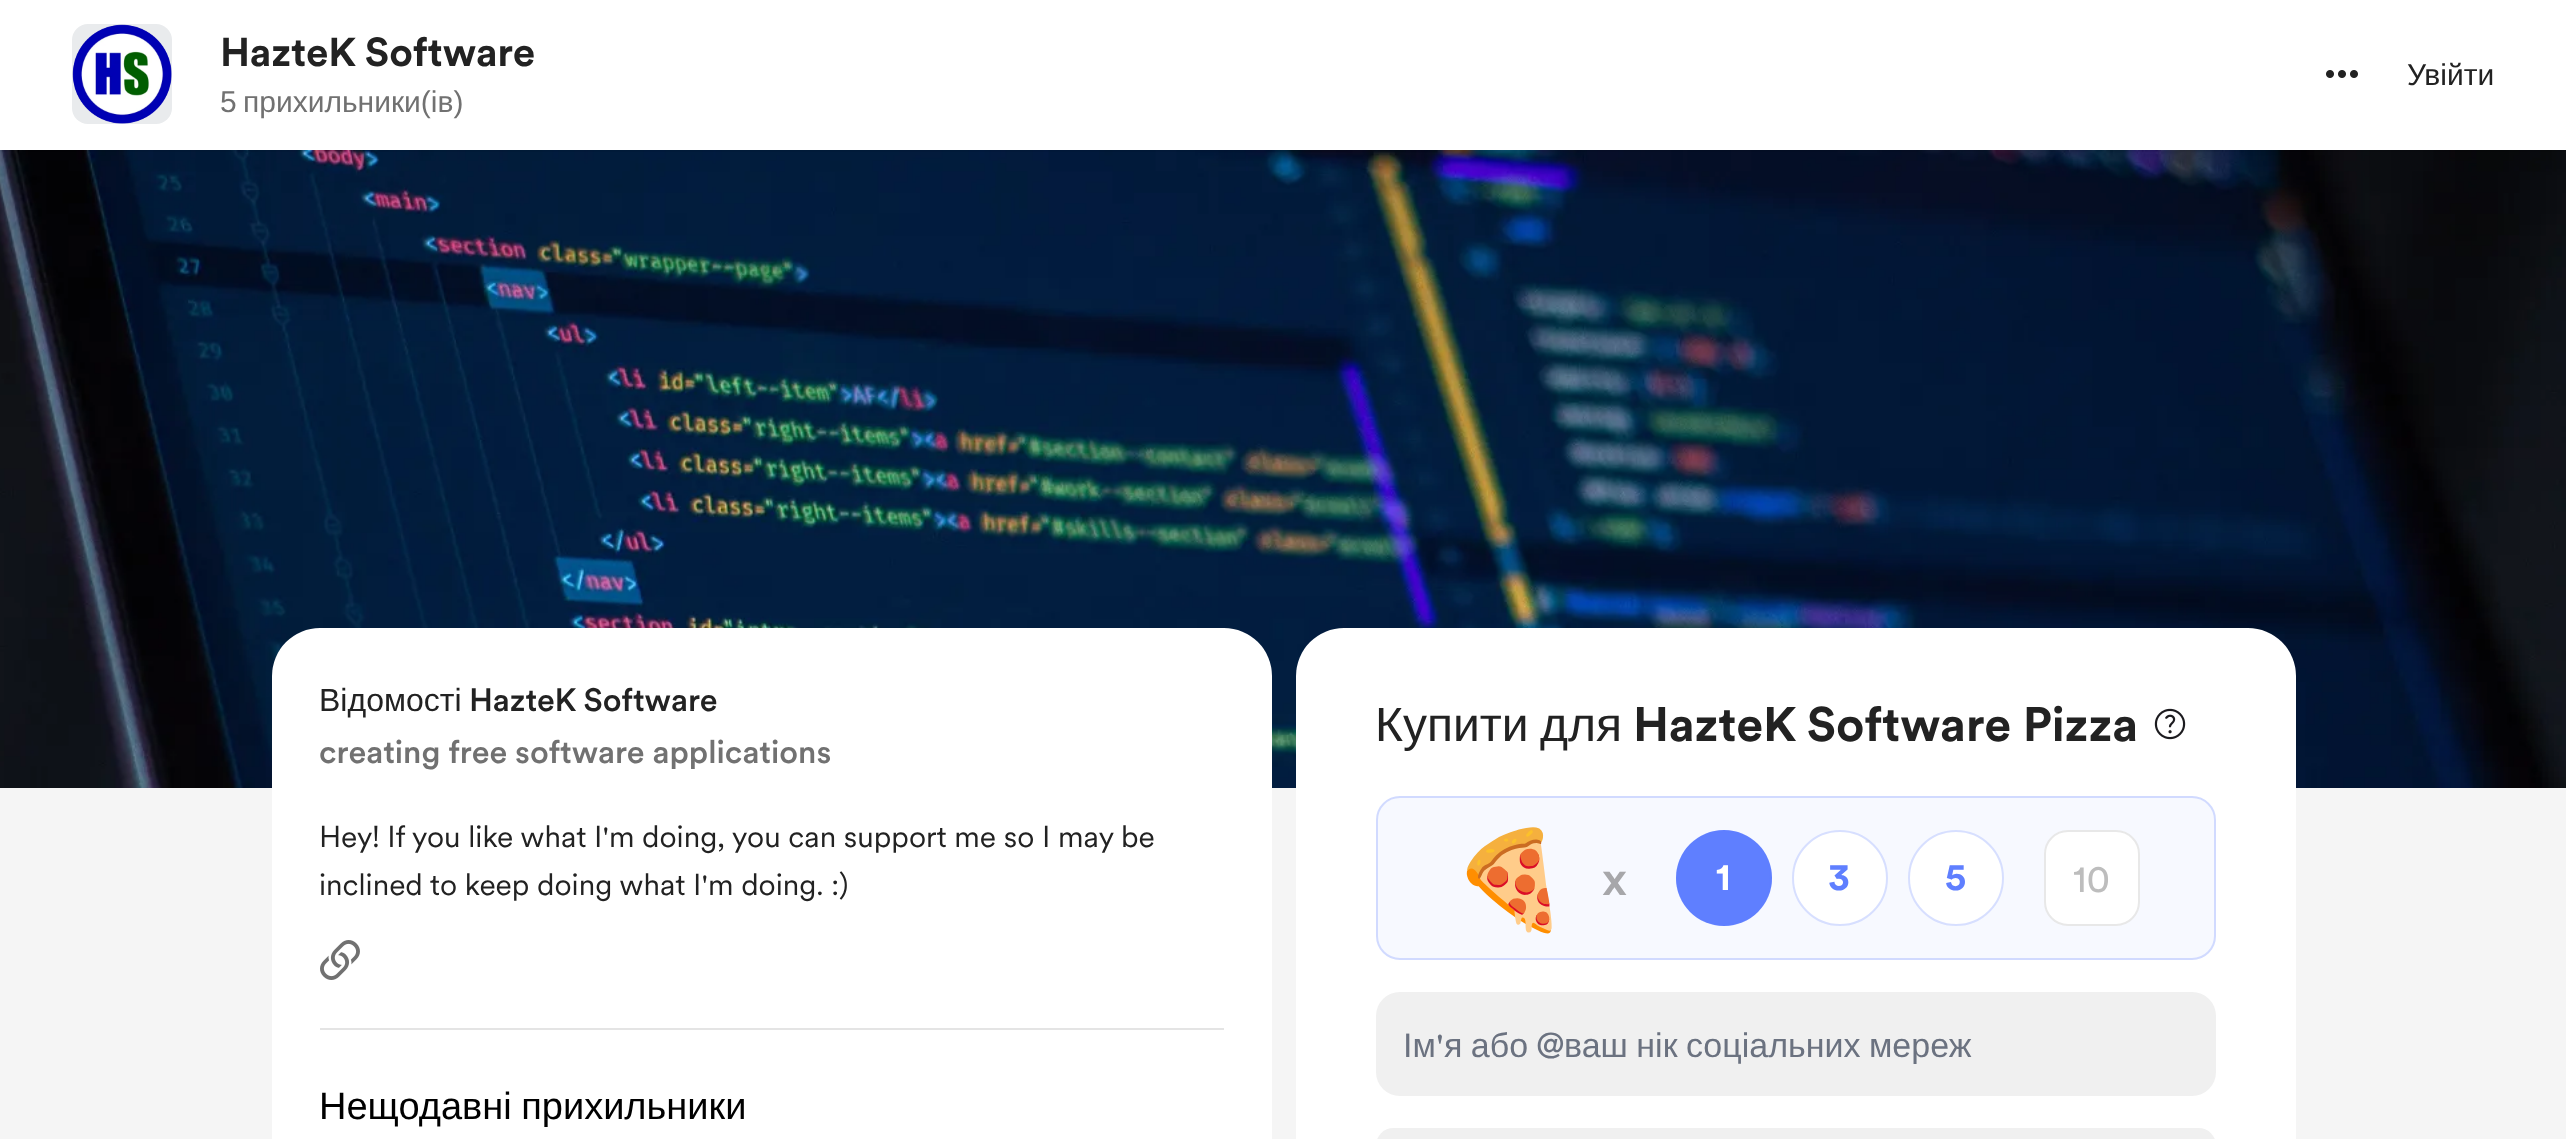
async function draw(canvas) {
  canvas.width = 2566
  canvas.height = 1139
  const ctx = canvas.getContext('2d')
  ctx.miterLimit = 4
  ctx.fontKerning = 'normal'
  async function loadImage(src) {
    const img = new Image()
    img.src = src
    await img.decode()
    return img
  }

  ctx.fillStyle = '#fff'
  ctx.fillRect(0, 0, 2566, 1139)
  ctx.drawImage(await loadImage('image3.png'), 0, 150, 2566, 638)
  ctx.save()
  ctx.beginPath()
  ctx.rect(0, 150, 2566, 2)
  ctx.clip()
  ctx.fillStyle = '#0000000f'
  ctx.filter = 'blur(1px)'
  ctx.beginPath()
  ctx.rect(0, 2, 2566, 150)
  ctx.fill()
  ctx.filter = 'none'
  ctx.restore()
  ctx.drawImage(await loadImage('image0.png'), 72, 24, 100, 100)
  ctx.drawImage(await loadImage('image1.png'), 72, 24, 100, 100)
  ctx.font = 'bold 40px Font'
  ctx.fillStyle = '#222'
  ctx.fillText('HazteK Software', 220, 66)
  ctx.wordSpacing = '-2px'
  ctx.font = '30px Liberation Sans'
  ctx.fillStyle = '#717171'
  ctx.fillText('5 прихильники(ів)', 220, 112)
  ctx.drawImage(await loadImage('image2.png'), 2326, 70, 32, 8)
  ctx.wordSpacing = '0px'
  ctx.fillStyle = '#222'
  ctx.fillText('Увійти', 2407, 85)
  ctx.fillStyle = '#f5f5f5'
  ctx.fillRect(0, 788, 2566, 351)
  ctx.fillStyle = '#fff'
  ctx.beginPath()
  ctx.roundRect(272, 628, 1000, 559, 48)
  ctx.fill()
  ctx.fillStyle = '#e4e4e4'
  ctx.fillRect(320, 1028, 904, 2)
  ctx.font = '32px Liberation Sans'
  ctx.fillStyle = '#222'
  ctx.fillText('Відомості', 319, 711)
  ctx.font = '500 32px Font'
  ctx.fillText('HazteK Software', 469, 711)
  ctx.fillStyle = '#717171'
  ctx.fillText('creating free software applications', 319, 763)
  ctx.font = '30px Font'
  ctx.fillStyle = '#222'
  ctx.fillText('Hey! If you like what I\'m doing, you can support me so I may be', 319, 847)
  ctx.fillText('inclined to keep doing what I\'m doing. :)', 319, 895)
  ctx.drawImage(await loadImage('image4.png'), 320, 940, 40, 40)
  ctx.wordSpacing = '-1px'
  ctx.font = '38px Liberation Sans'
  ctx.fillStyle = '#000'
  ctx.fillText('Нещодавні прихильники', 319, 1119)
  ctx.fillStyle = '#fff'
  ctx.beginPath()
  ctx.roundRect(1296, 628, 1000, 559, 48)
  ctx.fill()
  ctx.wordSpacing = '0px'
  ctx.font = '48px Liberation Sans'
  ctx.fillStyle = '#222'
  ctx.fillText('Купити', 1375, 741)
  ctx.fillText('для', 1540, 741)
  ctx.font = 'bold 48px Font'
  ctx.fillText('HazteK Software Pizza', 1633, 741)
  ctx.drawImage(await loadImage('image5.png'), 2154, 708, 32, 32)
  ctx.fillStyle = '#f7f9ff'
  ctx.beginPath()
  ctx.roundRect(1376, 796, 840, 164, 24)
  ctx.fill()
  ctx.beginPath()
  ctx.roundRect(1377, 797, 838, 162, 23)
  ctx.strokeStyle = '#5f7fff40'
  ctx.lineWidth = 2
  ctx.stroke()
  ctx.font = '96px Noto Color Emoji'
  ctx.fillStyle = '#000'
  ctx.fillText('🍕', 1451, 913)
  ctx.font = '500 48px Font'
  ctx.fillStyle = '#a7a7aa'
  ctx.fillText('x', 1602, 895)
  ctx.fillStyle = '#5f7fff'
  ctx.beginPath()
  ctx.arc(1724, 878, 48, 0, 2 * Math.PI)
  ctx.fill()
  ctx.beginPath()
  ctx.arc(1724, 878, 47, 0, 2 * Math.PI)
  ctx.stroke()
  ctx.font = 'bold 38px Font'
  ctx.fillStyle = '#fff'
  ctx.fillText('1', 1716, 890)
  ctx.beginPath()
  ctx.arc(1840, 878, 48, 0, 2 * Math.PI)
  ctx.fill()
  ctx.beginPath()
  ctx.arc(1840, 878, 47, 0, 2 * Math.PI)
  ctx.stroke()
  ctx.fillStyle = '#5f7fff'
  ctx.fillText('3', 1828, 890)
  ctx.fillStyle = '#fff'
  ctx.beginPath()
  ctx.arc(1956, 878, 48, 0, 2 * Math.PI)
  ctx.fill()
  ctx.beginPath()
  ctx.arc(1956, 878, 47, 0, 2 * Math.PI)
  ctx.stroke()
  ctx.fillStyle = '#5f7fff'
  ctx.fillText('5', 1945, 890)
  ctx.fillStyle = '#fff'
  ctx.beginPath()
  ctx.roundRect(2044, 830, 96, 96, 24)
  ctx.fill()
  ctx.beginPath()
  ctx.roundRect(2045, 831, 94, 94, 23)
  ctx.strokeStyle = '#2222221a'
  ctx.stroke()
  ctx.font = '38px "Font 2"'
  ctx.fillStyle = '#bdbdbd'
  ctx.fillText('10', 2073, 892)
  ctx.fillStyle = '#f0f0f0'
  ctx.beginPath()
  ctx.roundRect(1376, 992, 840, 104, 24)
  ctx.fill()
  ctx.font = '34px Liberation Sans'
  ctx.fillStyle = '#6b7280'
  ctx.fillText('Ім', 1403, 1057)
  ctx.font = '34px "Font 2"'
  ctx.fillText('\'', 1436, 1057)
  ctx.wordSpacing = '-1px'
  ctx.font = '34px Liberation Sans'
  ctx.fillText('я або', 1444, 1057)
  ctx.wordSpacing = '0px'
  ctx.font = '34px "Font 2"'
  ctx.fillText('@', 1536, 1057)
  ctx.wordSpacing = '-1px'
  ctx.font = '34px Liberation Sans'
  ctx.fillText('ваш нік соціальних мереж', 1564, 1057)
  ctx.fillStyle = '#f0f0f0'
  ctx.beginPath()
  ctx.roundRect(1376, 1128, 840, 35, 24)
  ctx.fill()
}

draw(document.querySelector('canvas'))
